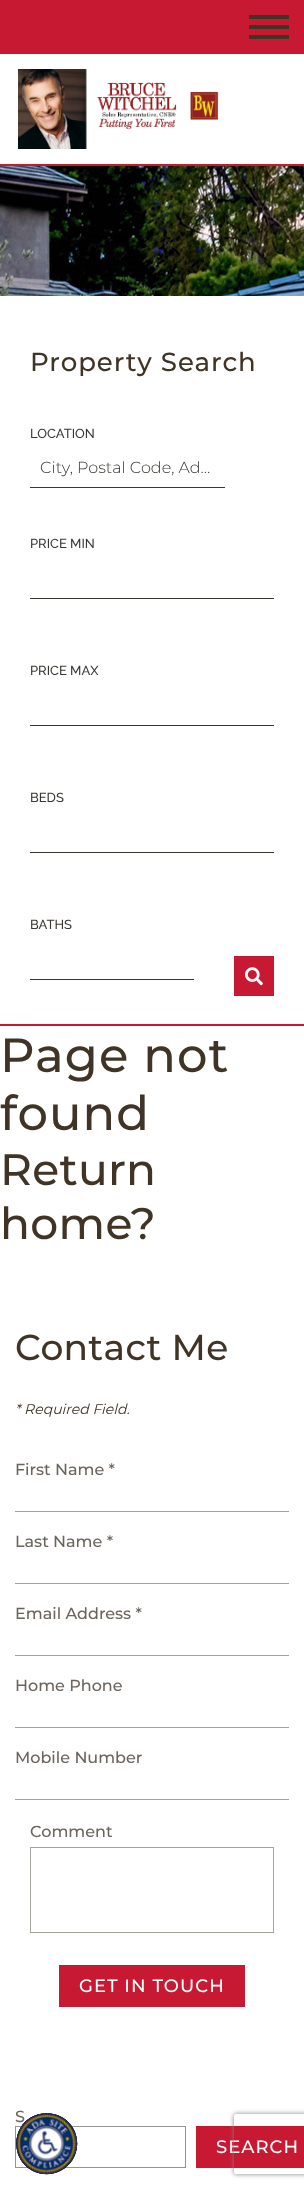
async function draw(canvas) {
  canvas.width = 304
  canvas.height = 2188
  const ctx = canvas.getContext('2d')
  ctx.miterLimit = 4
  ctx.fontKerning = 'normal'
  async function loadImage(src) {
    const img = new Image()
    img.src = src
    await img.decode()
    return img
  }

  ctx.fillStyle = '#fff'
  ctx.fillRect(0, 0, 304, 2188)
  ctx.fillStyle = '#c81933'
  ctx.fillRect(0, 0, 304, 54)
  ctx.fillStyle = '#403427'
  ctx.fillRect(249, 25, 40, 4)
  ctx.fillRect(249, 15, 40, 4)
  ctx.fillRect(249, 35, 40, 4)
  ctx.fillStyle = '#c81933'
  ctx.fillRect(0, 164, 304, 2)
  ctx.drawImage(await loadImage('image0.png'), 18, 69, 201, 80)
  ctx.drawImage(await loadImage('image1.png'), 0, 166, 304, 130)
  ctx.fillRect(0, 1024, 304, 2)
  ctx.letterSpacing = '1px'
  ctx.font = '500 26px Montserrat'
  ctx.fillStyle = '#403427'
  ctx.fillText('Property Search', 30, 371)
  ctx.letterSpacing = '0px'
  ctx.font = '500 13px Raleway'
  ctx.fillStyle = '#3a3733'
  ctx.fillText('LOCATION', 30, 438)
  ctx.fillRect(30, 487, 195, 1)
  ctx.font = '300 16px Montserrat'
  ctx.fillText('City, Postal Code, Ad…', 40, 473)
  ctx.font = '500 13px Raleway'
  ctx.fillText('PRICE MIN', 30, 548)
  ctx.fillRect(30, 598, 244, 1)
  ctx.fillText('PRICE MAX', 30, 675)
  ctx.fillRect(30, 725, 244, 1)
  ctx.fillText('BEDS', 30, 802)
  ctx.fillRect(30, 852, 244, 1)
  ctx.fillText('BATHS', 30, 929)
  ctx.fillRect(30, 979, 164, 1)
  ctx.fillStyle = '#c81933'
  ctx.fillRect(234, 956, 40, 40)
  ctx.drawImage(await loadImage('image2.png'), 245, 967, 18, 19)
  ctx.letterSpacing = '1px'
  ctx.font = '500 48px Montserrat'
  ctx.fillStyle = '#403427'
  ctx.fillText('Page not', 0, 1072)
  ctx.fillText('found', 0, 1130)
  ctx.letterSpacing = '0.25px'
  ctx.font = '500 44px Montserrat'
  ctx.fillText('Return', 0, 1185)
  ctx.fillText('home?', 0, 1239)
  ctx.font = '500 36px Montserrat'
  ctx.fillText('Contact Me', 15, 1360)
  ctx.letterSpacing = '0px'
  ctx.font = 'italic 14px Montserrat'
  ctx.fillText('* Required Field.', 15, 1414)
  ctx.font = '500 16px Montserrat'
  ctx.fillStyle = '#6a645d'
  ctx.fillText('First Name *', 15, 1475)
  ctx.fillStyle = '#a6a29e'
  ctx.fillRect(15, 1511, 274, 1)
  ctx.fillStyle = '#6a645d'
  ctx.fillText('Last Name *', 15, 1547)
  ctx.fillStyle = '#a6a29e'
  ctx.fillRect(15, 1583, 274, 1)
  ctx.fillStyle = '#6a645d'
  ctx.fillText('Email Address *', 15, 1619)
  ctx.fillStyle = '#a6a29e'
  ctx.fillRect(15, 1655, 274, 1)
  ctx.fillStyle = '#6a645d'
  ctx.fillText('Home Phone', 15, 1691)
  ctx.fillStyle = '#a6a29e'
  ctx.fillRect(15, 1727, 274, 1)
  ctx.fillStyle = '#6a645d'
  ctx.fillText('Mobile Number', 15, 1763)
  ctx.fillStyle = '#a6a29e'
  ctx.fillRect(15, 1799, 274, 1)
  ctx.fillStyle = '#6a645d'
  ctx.fillText('Comment', 30, 1837)
  ctx.strokeStyle = '#a6a29e'
  ctx.strokeRect(30.5, 1847.5, 243, 85)
  ctx.fillStyle = '#c81933'
  ctx.fillRect(59, 1965, 186, 42)
  ctx.letterSpacing = '1px'
  ctx.font = '500 18px Montserrat'
  ctx.fillStyle = '#fff'
  ctx.fillText('GET IN TOUCH', 79, 1992)
  ctx.letterSpacing = '0px'
  ctx.font = '500 16px Montserrat'
  ctx.fillStyle = '#6a645d'
  ctx.fillText('S', 15, 2122)
  ctx.strokeStyle = '#949494'
  ctx.strokeRect(15.5, 2126.5, 170, 41)
  ctx.fillStyle = '#c81933'
  ctx.fillRect(196, 2126, 108, 42)
  ctx.letterSpacing = '1px'
  ctx.font = '500 18px Montserrat'
  ctx.fillStyle = '#fff'
  ctx.fillText('SEARCH', 216, 2153)
  ctx.drawImage(await loadImage('image3.png'), 16, 2113, 62, 62)
  ctx.save()
  ctx.beginPath()
  ctx.moveTo(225, 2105)
  ctx.lineTo(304, 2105)
  ctx.lineTo(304, 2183)
  ctx.lineTo(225, 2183)
  ctx.closePath()
  ctx.moveTo(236, 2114)
  ctx.lineTo(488, 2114)
  ctx.bezierCurveTo(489, 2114, 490, 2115, 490, 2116)
  ctx.lineTo(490, 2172)
  ctx.bezierCurveTo(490, 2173, 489, 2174, 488, 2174)
  ctx.lineTo(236, 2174)
  ctx.bezierCurveTo(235, 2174, 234, 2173, 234, 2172)
  ctx.lineTo(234, 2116)
  ctx.bezierCurveTo(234, 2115, 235, 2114, 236, 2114)
  ctx.closePath()
  ctx.clip('evenodd')
  ctx.fillStyle = '#808080'
  ctx.filter = 'blur(2.5px)'
  ctx.beginPath()
  ctx.roundRect(234, 2114, 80, 60, 2)
  ctx.fill()
  ctx.filter = 'none'
  ctx.restore()
  ctx.drawImage(await loadImage('image4.png'), 16, 2113, 62, 62)
  ctx.drawImage(await loadImage('image5.png'), 16, 2113, 62, 62)
  ctx.drawImage(await loadImage('image6.png'), 16, 2113, 62, 62)
  ctx.drawImage(await loadImage('image7.png'), 16, 2113, 62, 62)
}

draw(document.querySelector('canvas'))
